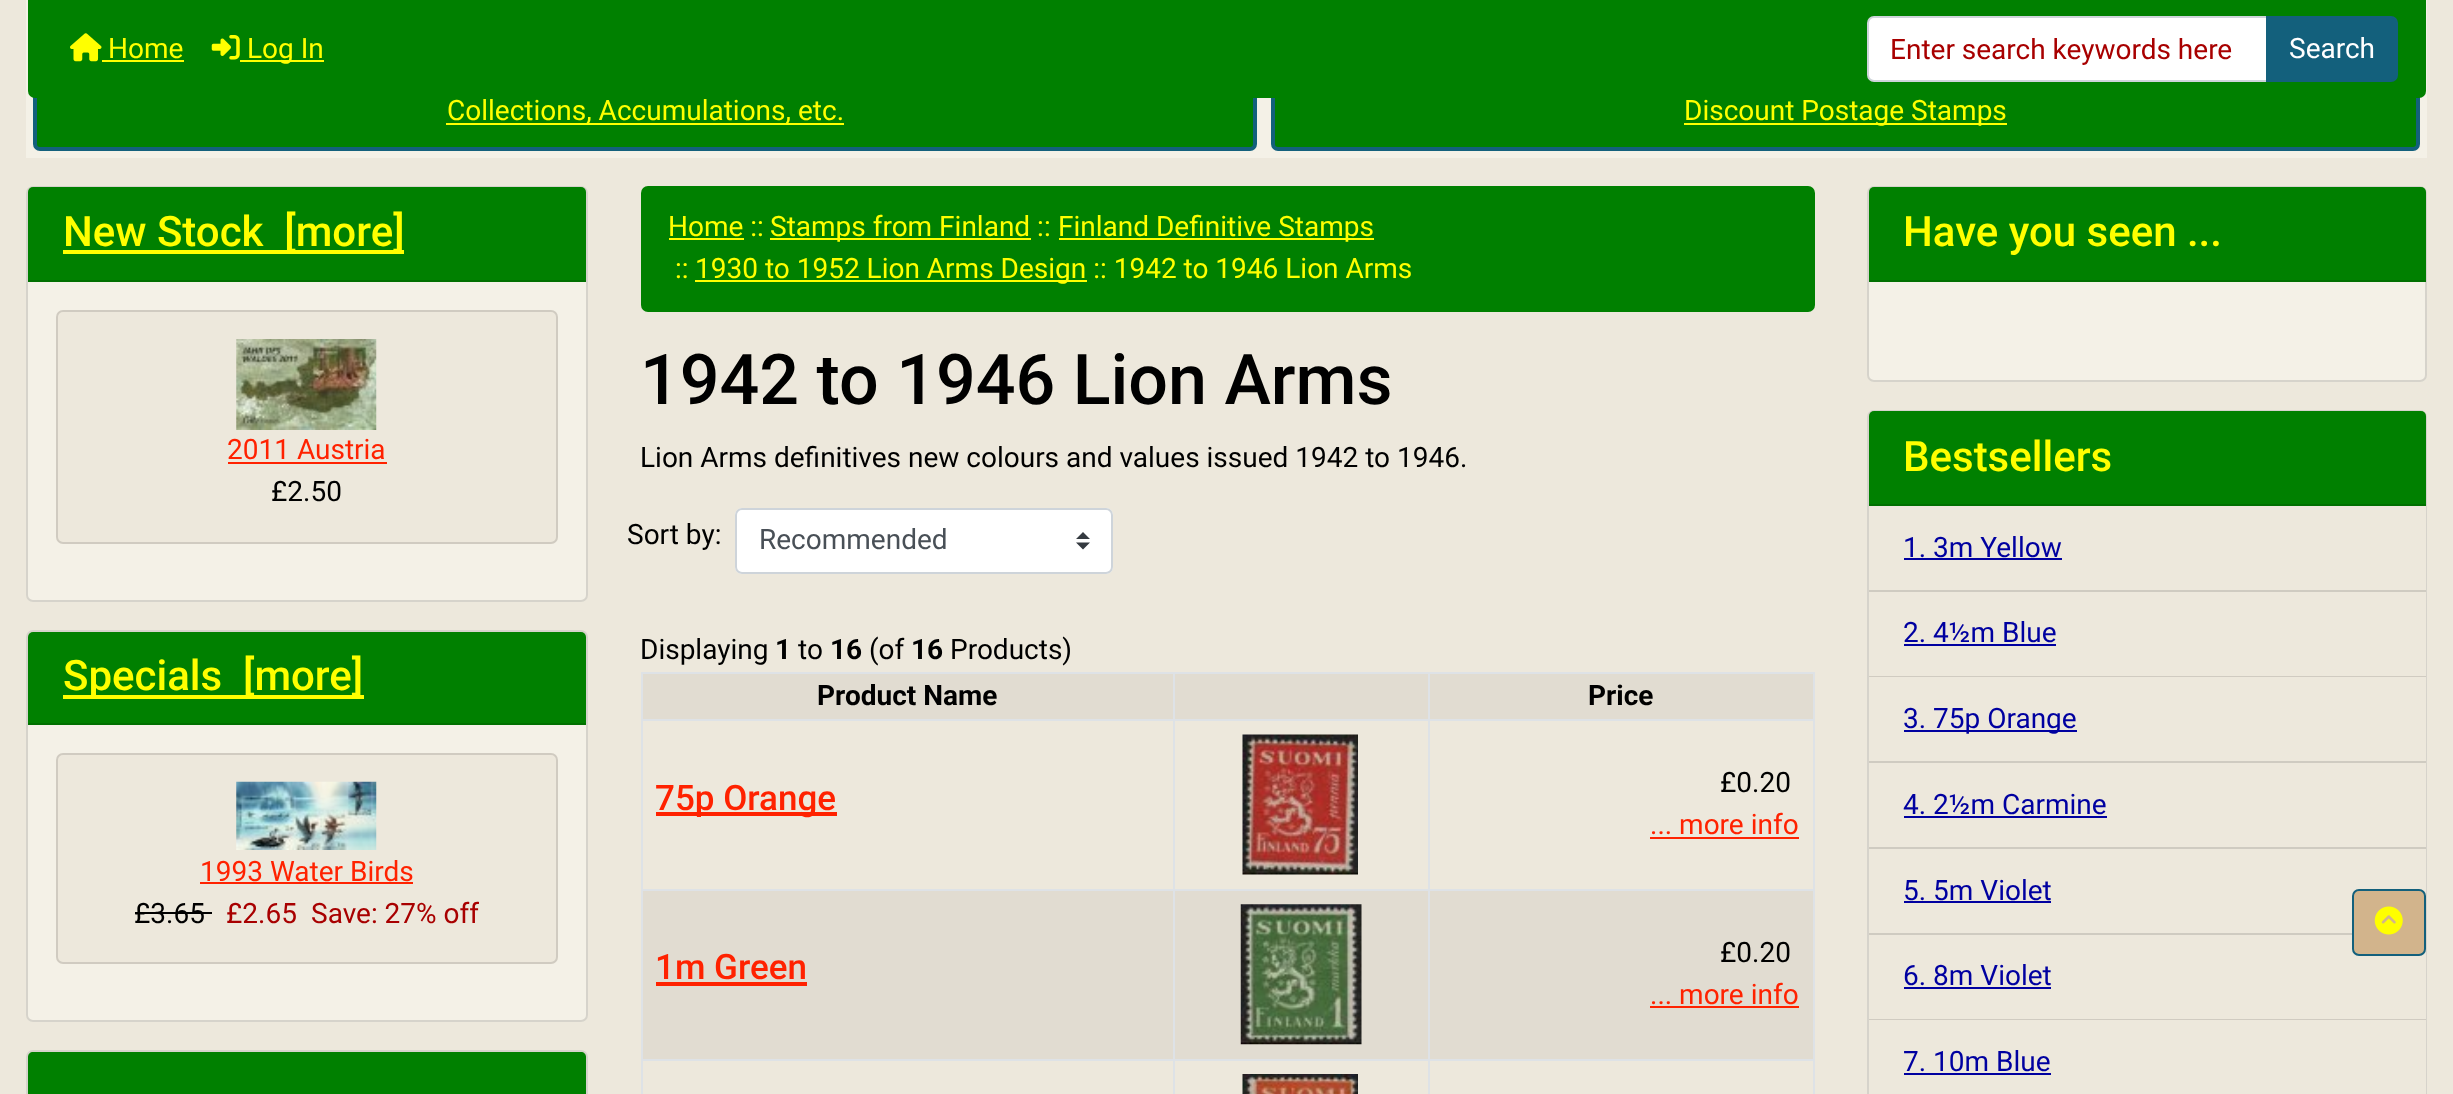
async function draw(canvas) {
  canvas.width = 2453
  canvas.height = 1094
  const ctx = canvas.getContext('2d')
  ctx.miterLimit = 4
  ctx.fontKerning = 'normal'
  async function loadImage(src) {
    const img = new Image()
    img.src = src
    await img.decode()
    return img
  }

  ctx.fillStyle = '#ede8dc'
  ctx.fillRect(0, 0, 2453, 1094)
  ctx.fillStyle = '#f4f1e7'
  ctx.fillRect(26, 0, 2401, 158)
  ctx.fillStyle = '#008000'
  ctx.beginPath()
  ctx.roundRect(35, 76, 1220, 73, 5)
  ctx.fill()
  ctx.strokeStyle = '#13607c'
  ctx.lineWidth = 4
  ctx.stroke()
  ctx.beginPath()
  ctx.roundRect(1273, 76, 1145, 73, 5)
  ctx.fill()
  ctx.stroke()
  ctx.beginPath()
  ctx.roundRect(28, 0, 2398, 98, [0, 0, 7, 7])
  ctx.fill()
  ctx.drawImage(await loadImage('image0.png'), 70, 33, 32, 29)
  ctx.font = '28px Roboto'
  ctx.fillStyle = '#ff0'
  ctx.fillText('Home', 108, 58)
  ctx.fillRect(102, 60, 82, 2)
  ctx.drawImage(await loadImage('image1.png'), 211, 35, 29, 25)
  ctx.fillRect(240, 60, 84, 2)
  ctx.fillText('Log In', 247, 58)
  ctx.fillStyle = '#fff'
  ctx.beginPath()
  ctx.roundRect(1868, 17, 399, 64, [6, 0, 0, 6])
  ctx.fill()
  ctx.strokeStyle = '#ced4da'
  ctx.lineWidth = 2
  ctx.stroke()
  ctx.fillStyle = '#a80000'
  ctx.fillText('Enter search keywords here', 1890, 59)
  ctx.fillStyle = '#13607c'
  ctx.beginPath()
  ctx.roundRect(2267, 17, 130, 64, [0, 6, 6, 0])
  ctx.fill()
  ctx.strokeStyle = '#13607c'
  ctx.stroke()
  ctx.fillStyle = '#fff'
  ctx.fillText('Search', 2289, 58)
  ctx.fillStyle = '#ff0'
  ctx.fillRect(446, 123, 398, 2)
  ctx.fillText('Collections, Accumulations, etc.', 447, 120)
  ctx.fillRect(1684, 123, 323, 2)
  ctx.fillText('Discount Postage Stamps', 1684, 120)
  ctx.fillStyle = '#f4f1e7'
  ctx.beginPath()
  ctx.roundRect(26, 186, 562, 416, 7)
  ctx.fill()
  ctx.beginPath()
  ctx.roundRect(27, 187, 560, 414, 6)
  ctx.strokeStyle = '#0000001f'
  ctx.stroke()
  ctx.fillStyle = '#008000'
  ctx.beginPath()
  ctx.roundRect(28, 187, 558, 95, [5, 5, 0, 0])
  ctx.fill()
  ctx.fillStyle = '#007000'
  ctx.fillRect(28, 280, 558, 2)
  ctx.fillStyle = '#ff0'
  ctx.fillRect(63, 250, 341, 4)
  ctx.font = '500 42px Roboto'
  ctx.fillText('New Stock  [more]', 63, 246)
  ctx.fillStyle = '#ede8dc'
  ctx.beginPath()
  ctx.roundRect(56, 310, 502, 234, 7)
  ctx.fill()
  ctx.beginPath()
  ctx.roundRect(57, 311, 500, 232, 6)
  ctx.stroke()
  ctx.drawImage(await loadImage('image2.png'), 236, 339, 141, 91)
  ctx.font = '28px Roboto'
  ctx.fillStyle = '#f20'
  ctx.fillText('2011 Austria', 227, 459)
  ctx.fillRect(228, 462, 159, 2)
  ctx.fillStyle = '#000'
  ctx.fillText('£2.50', 271, 501)
  ctx.fillStyle = '#f4f1e7'
  ctx.beginPath()
  ctx.roundRect(26, 630, 562, 392, 7)
  ctx.fill()
  ctx.beginPath()
  ctx.roundRect(27, 631, 560, 390, 6)
  ctx.stroke()
  ctx.fillStyle = '#008000'
  ctx.beginPath()
  ctx.roundRect(28, 632, 558, 93, [5, 5, 0, 0])
  ctx.fill()
  ctx.fillStyle = '#007000'
  ctx.fillRect(28, 723, 558, 2)
  ctx.fillStyle = '#ff0'
  ctx.fillRect(63, 695, 301, 4)
  ctx.font = '500 42px Roboto'
  ctx.fillText('Specials  [more]', 63, 690)
  ctx.fillStyle = '#ede8dc'
  ctx.beginPath()
  ctx.roundRect(56, 753, 502, 211, 7)
  ctx.fill()
  ctx.beginPath()
  ctx.roundRect(57, 754, 500, 209, 6)
  ctx.stroke()
  ctx.drawImage(await loadImage('image3.png'), 236, 781, 141, 69)
  ctx.font = '28px Roboto'
  ctx.fillStyle = '#f20'
  ctx.fillText('1993 Water Birds', 200, 881)
  ctx.fillRect(200, 882, 213, 2)
  ctx.fillStyle = '#000'
  ctx.fillText('£3.65', 134, 923)
  ctx.fillRect(135, 912, 77, 2)
  ctx.fillStyle = '#a80000'
  ctx.fillText('£2.65', 226, 923)
  ctx.fillText('Save: 27% off', 311, 923)
  ctx.fillStyle = '#f4f1e7'
  ctx.beginPath()
  ctx.roundRect(26, 1050, 562, 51, 7)
  ctx.fill()
  ctx.beginPath()
  ctx.roundRect(27, 1051, 560, 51, 6)
  ctx.stroke()
  ctx.fillStyle = '#008000'
  ctx.beginPath()
  ctx.moveTo(33, 1052)
  ctx.lineTo(581, 1052)
  ctx.bezierCurveTo(584, 1052, 586, 1054, 586, 1057)
  ctx.lineTo(586, 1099)
  ctx.lineTo(28, 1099)
  ctx.lineTo(28, 1057)
  ctx.bezierCurveTo(28, 1054, 30, 1052, 33, 1052)
  ctx.closePath()
  ctx.fill()
  ctx.beginPath()
  ctx.roundRect(641, 186, 1174, 126, 7)
  ctx.fill()
  ctx.fillStyle = '#ff0'
  ctx.fillText('Home ::', 668, 236)
  ctx.fillRect(669, 238, 75, 2)
  ctx.fillRect(770, 238, 261, 2)
  ctx.fillText('Stamps from Finland ::', 770, 236)
  ctx.fillRect(1059, 238, 315, 2)
  ctx.fillText('Finland Definitive Stamps', 1058, 236)
  ctx.fillText('::', 675, 278)
  ctx.fillRect(695, 280, 392, 2)
  ctx.fillText('1930 to 1952 Lion Arms Design :: 1942 to 1946 Lion Arms', 695, 278)
  ctx.font = '500 70px Roboto'
  ctx.fillStyle = '#000'
  ctx.fillText('1942 to 1946 Lion Arms', 640, 404)
  ctx.font = '28px Roboto'
  ctx.fillText('Lion Arms definitives new colours and values issued 1942 to 1946.', 640, 467)
  ctx.fillText('Sort by:', 627, 544)
  ctx.fillStyle = '#fff'
  ctx.beginPath()
  ctx.roundRect(735, 508, 378, 66, 7)
  ctx.fill()
  ctx.fillStyle = '#343a40'
  ctx.beginPath()
  ctx.moveTo(1083, 532)
  ctx.lineTo(1076, 539)
  ctx.lineTo(1090, 539)
  ctx.closePath()
  ctx.moveTo(1083, 549.5)
  ctx.lineTo(1076, 542.5)
  ctx.lineTo(1090, 542.5)
  ctx.closePath()
  ctx.fill()
  ctx.beginPath()
  ctx.roundRect(736, 509, 376, 64, 6)
  ctx.strokeStyle = '#ced4da'
  ctx.stroke()
  ctx.fillStyle = '#495057'
  ctx.fillText('Recommended', 759, 549)
  ctx.fillStyle = '#000'
  ctx.fillText('Displaying', 640, 659)
  ctx.font = 'bold 28px Roboto'
  ctx.fillText('1', 775, 659)
  ctx.font = '28px Roboto'
  ctx.fillText('to', 798, 659)
  ctx.font = 'bold 28px Roboto'
  ctx.fillText('16', 830, 659)
  ctx.font = '28px Roboto'
  ctx.fillText('(of', 869, 659)
  ctx.font = 'bold 28px Roboto'
  ctx.fillText('16', 911, 659)
  ctx.font = '28px Roboto'
  ctx.fillText('Products)', 950, 659)
  ctx.fillStyle = '#dee2e6'
  ctx.fillRect(641, 672, 1174, 2)
  ctx.fillRect(1813, 672, 2, 422)
  ctx.fillRect(641, 672, 2, 422)
  ctx.fillStyle = '#e1dcd1'
  ctx.fillRect(643, 674, 1170, 45)
  ctx.font = 'bold 28px Roboto'
  ctx.fillStyle = '#000'
  ctx.fillText('Product Name', 817, 705)
  ctx.fillStyle = '#dee2e6'
  ctx.fillRect(1428, 719, 387, 2)
  ctx.fillRect(1428, 889, 387, 2)
  ctx.fillStyle = '#e1dcd1'
  ctx.fillRect(643, 891, 1170, 168)
  ctx.fillStyle = '#dee2e6'
  ctx.fillRect(1428, 1059, 387, 2)
  ctx.fillRect(1428, 1059, 2, 35)
  ctx.fillRect(1173, 1059, 257, 2)
  ctx.fillRect(1428, 889, 2, 172)
  ctx.fillRect(1173, 889, 257, 2)
  ctx.fillRect(1428, 719, 2, 172)
  ctx.fillRect(1173, 719, 257, 2)
  ctx.fillRect(1173, 1059, 2, 35)
  ctx.fillRect(641, 1059, 533, 2)
  ctx.fillRect(1173, 889, 2, 172)
  ctx.fillRect(641, 889, 533, 2)
  ctx.fillRect(1173, 719, 2, 172)
  ctx.fillRect(641, 719, 533, 2)
  ctx.fillRect(1173, 672, 2, 49)
  ctx.fillRect(1428, 672, 2, 49)
  ctx.fillStyle = '#000'
  ctx.fillText('Price', 1588, 705)
  ctx.fillStyle = '#f20'
  ctx.fillRect(656, 812, 181, 4)
  ctx.font = '500 35px Roboto'
  ctx.fillText('75p Orange', 655, 810)
  ctx.drawImage(await loadImage('image4.png'), 1242, 734, 116, 141)
  ctx.font = '28px Roboto'
  ctx.fillStyle = '#000'
  ctx.fillText('£0.20', 1720, 792)
  ctx.fillStyle = '#f20'
  ctx.fillText('... more info', 1650, 834)
  ctx.fillRect(1650, 837, 149, 2)
  ctx.font = '500 35px Roboto'
  ctx.fillText('1m Green', 655, 979)
  ctx.fillRect(656, 982, 151, 4)
  ctx.drawImage(await loadImage('image5.png'), 1240, 904, 122, 141)
  ctx.font = '28px Roboto'
  ctx.fillStyle = '#000'
  ctx.fillText('£0.20', 1720, 962)
  ctx.fillStyle = '#f20'
  ctx.fillText('... more info', 1650, 1004)
  ctx.fillRect(1650, 1006, 149, 2)
  ctx.drawImage(await loadImage('image6.png'), 1242, 1074, 116, 20)
  ctx.fillStyle = '#f4f1e7'
  ctx.beginPath()
  ctx.roundRect(1867, 186, 560, 196, 7)
  ctx.fill()
  ctx.beginPath()
  ctx.roundRect(1868, 187, 558, 194, 6)
  ctx.strokeStyle = '#0000001f'
  ctx.stroke()
  ctx.fillStyle = '#008000'
  ctx.beginPath()
  ctx.roundRect(1869, 187, 557, 95, [5, 5, 0, 0])
  ctx.fill()
  ctx.fillStyle = '#007000'
  ctx.fillRect(1869, 280, 557, 2)
  ctx.font = '500 42px Roboto'
  ctx.fillStyle = '#ff0'
  ctx.fillText('Have you seen ...', 1903, 246)
  ctx.fillStyle = '#f4f1e7'
  ctx.beginPath()
  ctx.roundRect(1867, 410, 560, 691, 7)
  ctx.fill()
  ctx.beginPath()
  ctx.roundRect(1868, 411, 558, 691, 6)
  ctx.stroke()
  ctx.fillStyle = '#008000'
  ctx.beginPath()
  ctx.roundRect(1869, 411, 557, 95, [5, 5, 0, 0])
  ctx.fill()
  ctx.fillStyle = '#007000'
  ctx.fillRect(1869, 504, 557, 2)
  ctx.fillStyle = '#ff0'
  ctx.fillText('Bestsellers', 1903, 471)
  ctx.fillStyle = '#ede8dc'
  ctx.fillRect(1869, 506, 557, 84)
  ctx.fillStyle = '#cfcbc1'
  ctx.fillRect(1869, 590, 557, 2)
  ctx.font = '28px Roboto'
  ctx.fillStyle = '#0000a0'
  ctx.fillText('1. 3m Yellow', 1903, 557)
  ctx.fillRect(1904, 558, 158, 2)
  ctx.fillStyle = '#ede8dc'
  ctx.fillRect(1869, 592, 557, 169)
  ctx.fillStyle = '#0000001f'
  ctx.fillRect(1869, 676, 557, 1)
  ctx.fillStyle = '#0000a0'
  ctx.fillText('2. 4½m Blue', 1903, 642)
  ctx.fillRect(1904, 644, 152, 2)
  ctx.fillStyle = '#cfcbc1'
  ctx.fillRect(1869, 761, 557, 2)
  ctx.fillStyle = '#0000a0'
  ctx.fillRect(1904, 730, 173, 2)
  ctx.fillText('3. 75p Orange', 1903, 728)
  ctx.fillStyle = '#ede8dc'
  ctx.fillRect(1869, 763, 557, 84)
  ctx.fillStyle = '#cfcbc1'
  ctx.fillRect(1869, 847, 557, 2)
  ctx.fillStyle = '#0000a0'
  ctx.fillText('4. 2½m Carmine', 1903, 814)
  ctx.fillRect(1904, 816, 203, 2)
  ctx.fillStyle = '#ede8dc'
  ctx.fillRect(1869, 849, 557, 84)
  ctx.fillStyle = '#cfcbc1'
  ctx.fillRect(1869, 933, 483, 2)
  ctx.fillStyle = '#0000a0'
  ctx.fillText('5. 5m Violet', 1903, 900)
  ctx.fillRect(1904, 901, 147, 2)
  ctx.fillStyle = '#ede8dc'
  ctx.fillRect(1869, 935, 557, 159)
  ctx.fillStyle = '#0000001f'
  ctx.fillRect(1869, 1019, 557, 1)
  ctx.fillStyle = '#0000a0'
  ctx.fillText('6. 8m Violet', 1903, 985)
  ctx.fillRect(1904, 987, 147, 2)
  ctx.fillText('7. 10m Blue', 1903, 1071)
  ctx.fillRect(1904, 1073, 147, 2)
  ctx.fillStyle = '#d2b48c'
  ctx.beginPath()
  ctx.roundRect(2353, 890, 72, 65, 6)
  ctx.fill()
  ctx.strokeStyle = '#13607c'
  ctx.stroke()
  ctx.drawImage(await loadImage('image7.png'), 2374, 906, 29, 29)
}

draw(document.querySelector('canvas'))
